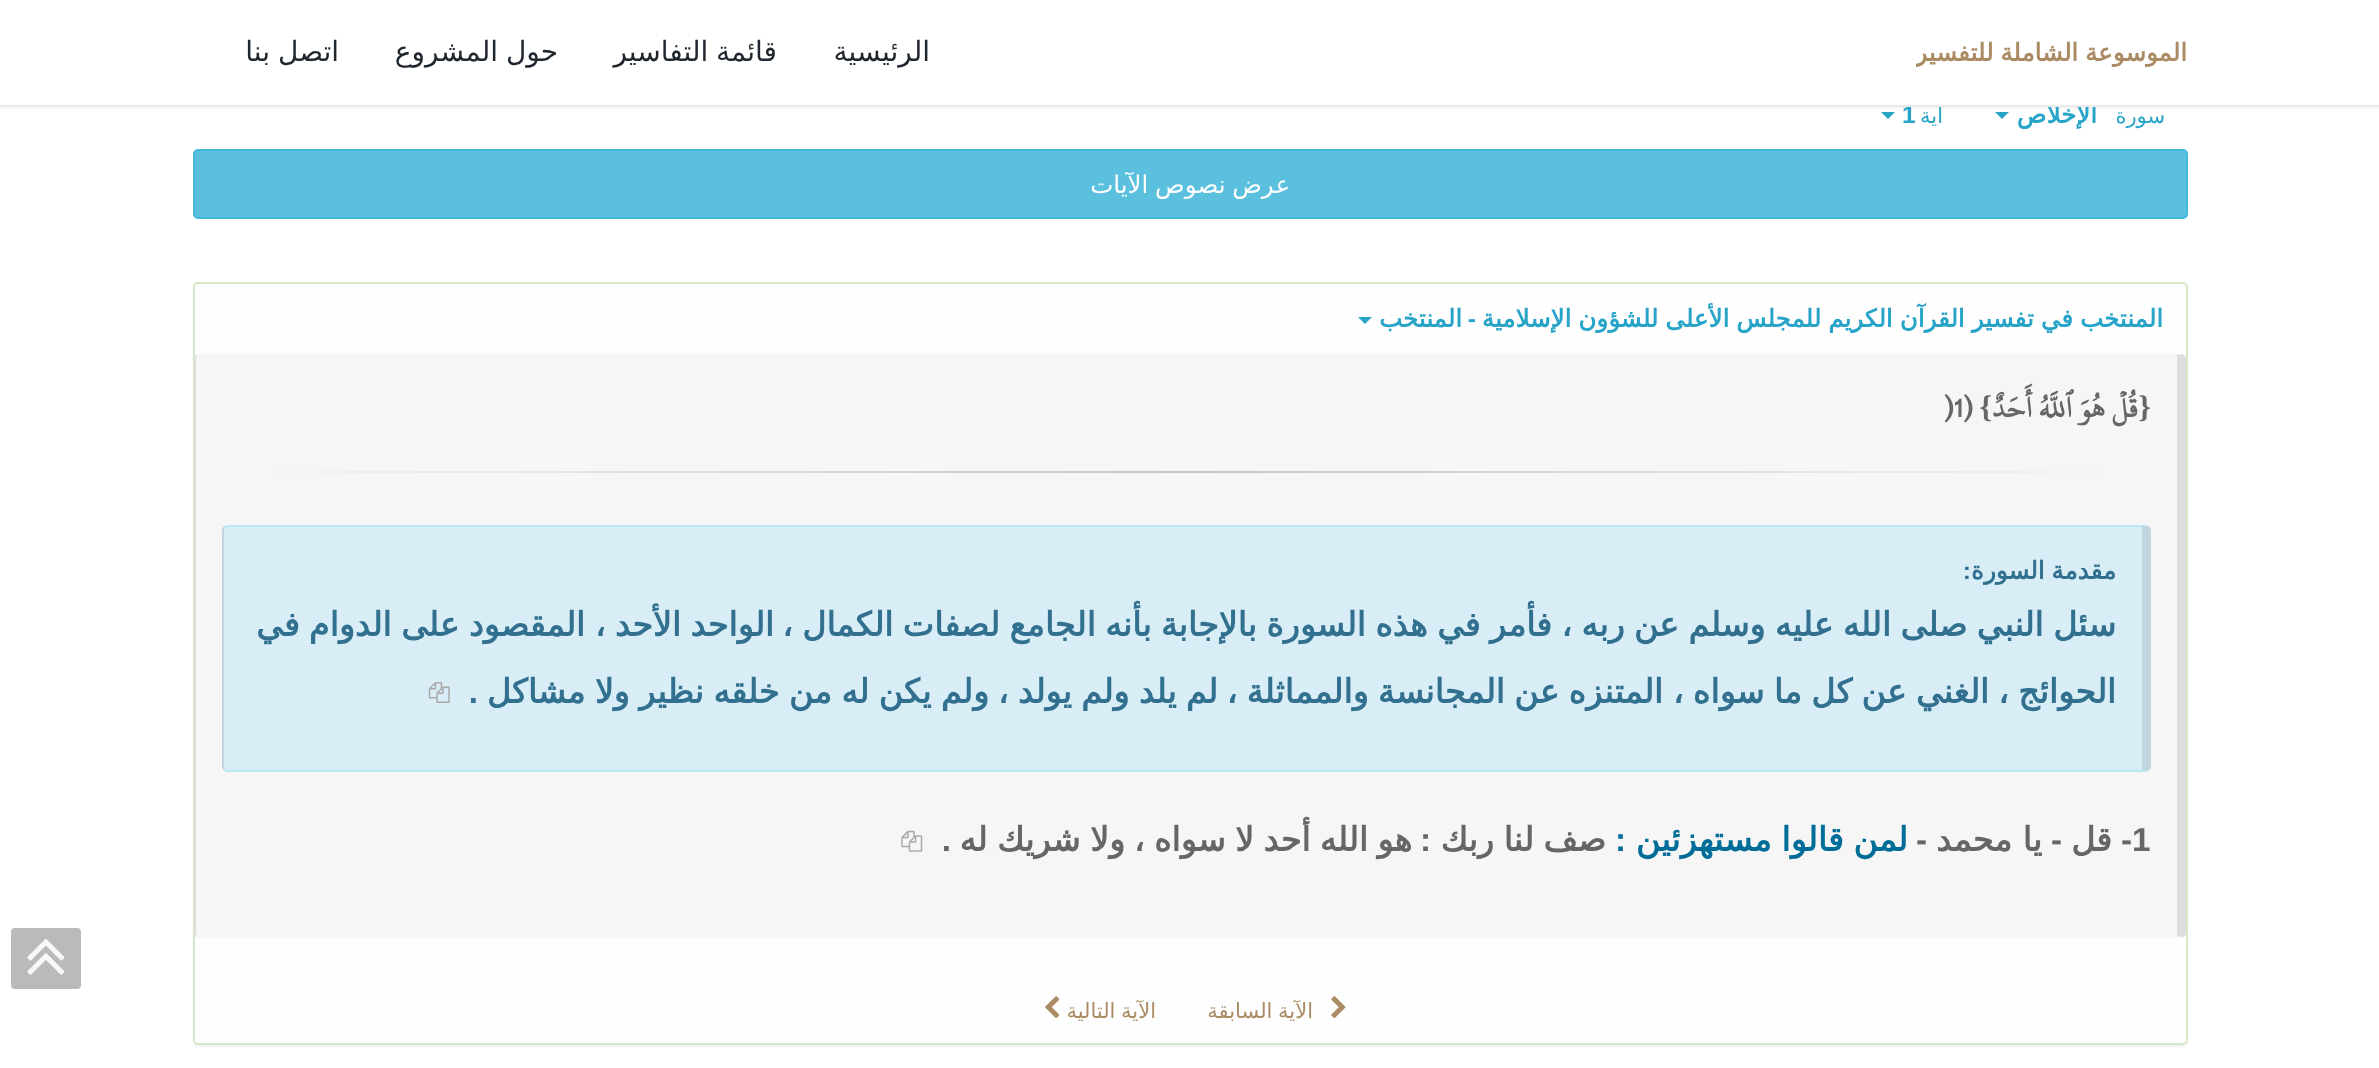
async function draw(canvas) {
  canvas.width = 2379
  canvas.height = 1068
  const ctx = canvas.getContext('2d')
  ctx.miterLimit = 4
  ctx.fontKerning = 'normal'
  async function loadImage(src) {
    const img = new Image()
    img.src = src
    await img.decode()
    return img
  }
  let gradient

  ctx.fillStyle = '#fff'
  ctx.fillRect(0, 0, 2379, 1068)
  ctx.fillStyle = '#28a4c9'
  ctx.beginPath()
  ctx.moveTo(1995, 112)
  ctx.lineTo(2009, 112)
  ctx.lineTo(2002, 119)
  ctx.closePath()
  ctx.fill()
  ctx.beginPath()
  ctx.moveTo(1881, 112)
  ctx.lineTo(1895, 112)
  ctx.lineTo(1888, 119)
  ctx.closePath()
  ctx.fill()
  ctx.fillStyle = '#0000001a'
  ctx.filter = 'blur(2px)'
  ctx.beginPath()
  ctx.rect(0, 0, 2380, 107)
  ctx.fill()
  ctx.filter = 'none'
  ctx.direction = 'rtl'
  ctx.font = 'bold 24.5px DejaVu Sans'
  ctx.fillStyle = '#28a4c9'
  ctx.fillText('الإخلاص', 2097, 123)
  ctx.font = '21px DejaVu Sans'
  ctx.fillText('آية', 1943, 123)
  ctx.fillStyle = '#fff'
  ctx.fillRect(0, 0, 2379, 105)
  ctx.direction = 'ltr'
  ctx.font = 'bold 24.5px Liberation Sans'
  ctx.fillStyle = '#28a4c9'
  ctx.fillText('1', 1902, 123)
  ctx.fillStyle = '#ebebeb'
  ctx.fillRect(0, 105, 2379, 2)
  ctx.save()
  ctx.beginPath()
  ctx.rect(1916, 0, 272, 105)
  ctx.clip()
  ctx.wordSpacing = '-1px'
  ctx.direction = 'rtl'
  ctx.font = 'bold 24.5px DejaVu Sans'
  ctx.fillStyle = '#ab8b64'
  ctx.fillText('الموسوعة الشاملة للتفسير', 2187, 61)
  ctx.restore()
  ctx.direction = 'rtl'
  ctx.font = '28px DejaVu Sans'
  ctx.fillStyle = '#1f262d'
  ctx.fillText('الرئيسية', 930, 61)
  ctx.wordSpacing = '-1px'
  ctx.fillText('قائمة التفاسير', 777, 61)
  ctx.fillText('حول المشروع', 558, 61)
  ctx.fillText('اتصل بنا', 339, 61)
  ctx.wordSpacing = '0px'
  ctx.font = '21px DejaVu Sans'
  ctx.fillStyle = '#28a4c9'
  ctx.fillText('سورة', 2165, 123)
  ctx.fillStyle = '#5bc0de'
  ctx.beginPath()
  ctx.roundRect(194, 150, 1993, 68, 4)
  ctx.fill()
  ctx.strokeStyle = '#46b8da'
  ctx.lineWidth = 2
  ctx.stroke()
  ctx.wordSpacing = '-1px'
  ctx.font = '24.5px DejaVu Sans'
  ctx.fillStyle = '#fff'
  ctx.fillText('عرض نصوص الآيات', 1290, 193)
  ctx.fillStyle = '#0000000d'
  ctx.filter = 'blur(1px)'
  ctx.beginPath()
  ctx.roundRect(193, 284, 1995, 763, 5)
  ctx.fill()
  ctx.filter = 'none'
  ctx.fillStyle = '#fefefe'
  ctx.beginPath()
  ctx.roundRect(194, 283, 1993, 761, 4)
  ctx.fill()
  ctx.strokeStyle = '#d6e9c6'
  ctx.stroke()
  ctx.wordSpacing = '-0.75px'
  ctx.font = 'bold 24.5px DejaVu Sans'
  ctx.fillStyle = '#28a4c9'
  ctx.fillText('المنتخب في تفسير القرآن الكريم للمجلس الأعلى للشؤون الإسلامية', 2163, 327)
  ctx.wordSpacing = '0px'
  ctx.font = 'bold 24.5px Liberation Sans'
  ctx.fillText('-', 1476, 327)
  ctx.font = 'bold 24.5px DejaVu Sans'
  ctx.fillText('المنتخب', 1462, 327)
  ctx.beginPath()
  ctx.moveTo(1358, 317)
  ctx.lineTo(1372, 317)
  ctx.lineTo(1365, 324)
  ctx.closePath()
  ctx.fill()
  ctx.fillStyle = '#f6f6f6'
  ctx.beginPath()
  ctx.roundRect(194, 354, 1992, 584, 5)
  ctx.fill()
  ctx.fillStyle = '#ddd'
  ctx.beginPath()
  ctx.moveTo(2182, 354)
  ctx.bezierCurveTo(2184, 355, 2185, 356, 2186, 358)
  ctx.lineTo(2186, 934)
  ctx.bezierCurveTo(2185, 936, 2184, 937, 2183, 937)
  ctx.lineTo(2176, 936)
  ctx.lineTo(2177, 936)
  ctx.lineTo(2177, 355)
  ctx.closePath()
  ctx.fill()
  ctx.fillStyle = '#0000001a'
  ctx.beginPath()
  ctx.moveTo(194, 358)
  ctx.lineTo(196, 355)
  ctx.lineTo(197, 356)
  ctx.lineTo(196, 359)
  ctx.lineTo(196, 933)
  ctx.lineTo(197, 935)
  ctx.lineTo(196, 937)
  ctx.lineTo(194, 934)
  ctx.closePath()
  ctx.fill()
  ctx.font = 'bold 31.5px Liberation Serif'
  ctx.fillStyle = '#666'
  ctx.fillText('{', 2151, 417)
  ctx.font = 'bold 31.5px "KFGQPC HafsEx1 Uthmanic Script"'
  ctx.fillText('قُلۡ هُوَ ٱللَّهُ أَحَدٌ', 2138, 417)
  ctx.font = 'bold 31.5px Liberation Serif'
  ctx.fillText('}', 1992, 417)
  ctx.font = 'bold 31.5px "KFGQPC HafsEx1 Uthmanic Script"'
  ctx.fillText('(', 1973, 417)
  ctx.direction = 'ltr'
  ctx.fillText(')1', 1943, 417)
  gradient = ctx.createLinearGradient(222, 472, 2151, 472)
  gradient.addColorStop(0, '#f6f6f6')
  gradient.addColorStop(0.5, '#c5c5c5')
  gradient.addColorStop(1, '#f6f6f6')
  ctx.fillStyle = gradient
  ctx.fillRect(271, 471, 1831, 2)
  ctx.fillStyle = '#d9edf7'
  ctx.beginPath()
  ctx.roundRect(222, 525, 1929, 247, 5)
  ctx.fill()
  ctx.fillStyle = '#bce8f1'
  ctx.beginPath()
  ctx.moveTo(228, 525)
  ctx.bezierCurveTo(226, 525, 225, 526, 224, 526)
  ctx.lineTo(225, 528)
  ctx.lineTo(228, 527)
  ctx.lineTo(2141, 527)
  ctx.lineTo(2148, 526)
  ctx.lineTo(2146, 525)
  ctx.closePath()
  ctx.fill()
  ctx.fillStyle = '#0000001a'
  ctx.beginPath()
  ctx.moveTo(2151, 768)
  ctx.bezierCurveTo(2150, 769, 2149, 770, 2148, 771)
  ctx.lineTo(2142, 770)
  ctx.lineTo(2142, 527)
  ctx.lineTo(2141, 527)
  ctx.lineTo(2148, 526)
  ctx.lineTo(2151, 529)
  ctx.closePath()
  ctx.fill()
  ctx.fillStyle = '#bce8f1'
  ctx.beginPath()
  ctx.moveTo(226, 772)
  ctx.lineTo(224, 770)
  ctx.lineTo(225, 769)
  ctx.bezierCurveTo(226, 770, 227, 770, 228, 770)
  ctx.lineTo(2142, 770)
  ctx.lineTo(2148, 771)
  ctx.lineTo(2147, 772)
  ctx.closePath()
  ctx.fill()
  ctx.fillStyle = '#0000001a'
  ctx.beginPath()
  ctx.moveTo(222, 529)
  ctx.lineTo(224, 526)
  ctx.lineTo(225, 528)
  ctx.bezierCurveTo(224, 528, 224, 529, 224, 530)
  ctx.lineTo(224, 766)
  ctx.bezierCurveTo(224, 767, 224, 768, 225, 769)
  ctx.lineTo(224, 770)
  ctx.lineTo(222, 768)
  ctx.closePath()
  ctx.fill()
  ctx.wordSpacing = '-1px'
  ctx.direction = 'rtl'
  ctx.font = 'bold 24.5px DejaVu Sans'
  ctx.fillStyle = '#31708f'
  ctx.fillText('مقدمة السورة', 2116, 579)
  ctx.wordSpacing = '0px'
  ctx.font = 'bold 24.5px Liberation Sans'
  ctx.fillText(':', 1971, 579)
  ctx.wordSpacing = '-1.25px'
  ctx.font = 'bold 33.25px DejaVu Sans'
  ctx.fillText('سئل النبي صلى الله عليه وسلم عن ربه ،', 2116, 636)
  ctx.fillText('فأمر في هذه السورة بالإجابة بأنه الجامع لصفات الكمال ،', 1552, 636)
  ctx.fillText('الواحد الأحد ،', 774, 636)
  ctx.fillText('المقصود على الدوام في', 585, 636)
  ctx.fillText('الحوائج ،', 2116, 703)
  ctx.fillText('الغني عن كل ما سواه ،', 1989, 703)
  ctx.fillText('المتنزه عن المجانسة والمماثلة ،', 1663, 703)
  ctx.fillText('لم يلد ولم يولد ،', 1218, 703)
  ctx.fillText('ولم يكن له من خلقه نظير ولا مشاكل', 989, 703)
  ctx.wordSpacing = '0px'
  ctx.font = 'bold 33.25px Liberation Sans'
  ctx.fillText('.', 478, 703)
  ctx.drawImage(await loadImage('image0.png'), 428, 682, 22, 21)
  ctx.direction = 'ltr'
  ctx.fillStyle = '#666'
  ctx.fillText('1', 2132, 851)
  ctx.direction = 'rtl'
  ctx.fillText('-', 2132, 851)
  ctx.font = 'bold 33.25px DejaVu Sans'
  ctx.fillText('قل', 2112, 851)
  ctx.font = 'bold 33.25px Liberation Sans'
  ctx.fillText('-', 2062, 851)
  ctx.font = 'bold 33.25px DejaVu Sans'
  ctx.fillText('يا محمد', 2042, 851)
  ctx.font = 'bold 33.25px Liberation Sans'
  ctx.fillText('-', 1927, 851)
  ctx.wordSpacing = '-1px'
  ctx.font = 'bold 33.25px DejaVu Sans'
  ctx.fillStyle = '#006d98'
  ctx.fillText('لمن قالوا مستهزئين', 1908, 851)
  ctx.wordSpacing = '0px'
  ctx.font = 'bold 33.25px Liberation Sans'
  ctx.fillText(':', 1626, 851)
  ctx.wordSpacing = '-1px'
  ctx.font = 'bold 33.25px DejaVu Sans'
  ctx.fillStyle = '#666'
  ctx.fillText('صف لنا ربك', 1606, 851)
  ctx.wordSpacing = '0px'
  ctx.font = 'bold 33.25px Liberation Sans'
  ctx.fillText(':', 1431, 851)
  ctx.wordSpacing = '-1.25px'
  ctx.font = 'bold 33.25px DejaVu Sans'
  ctx.fillText('هو الله أحد لا سواه ،', 1412, 851)
  ctx.wordSpacing = '-1px'
  ctx.fillText('ولا شريك له', 1125, 851)
  ctx.drawImage(await loadImage('image1.png'), 901, 830, 22, 22)
  ctx.wordSpacing = '0px'
  ctx.font = 'bold 33.25px Liberation Sans'
  ctx.fillText('.', 951, 851)
  ctx.drawImage(await loadImage('image2.png'), 1331, 996, 15, 23)
  ctx.wordSpacing = '-1px'
  ctx.font = '21px DejaVu Sans'
  ctx.fillStyle = '#ab8b64'
  ctx.fillText('الآية السابقة', 1313, 1018)
  ctx.fillText('الآية التالية', 1156, 1018)
  ctx.drawImage(await loadImage('image3.png'), 1045, 996, 15, 23)
  ctx.fillStyle = '#bababa'
  ctx.beginPath()
  ctx.roundRect(11, 928, 70, 61, 4)
  ctx.fill()
  ctx.drawImage(await loadImage('image4.png'), 27, 939, 38, 36)
}

draw(document.querySelector('canvas'))
